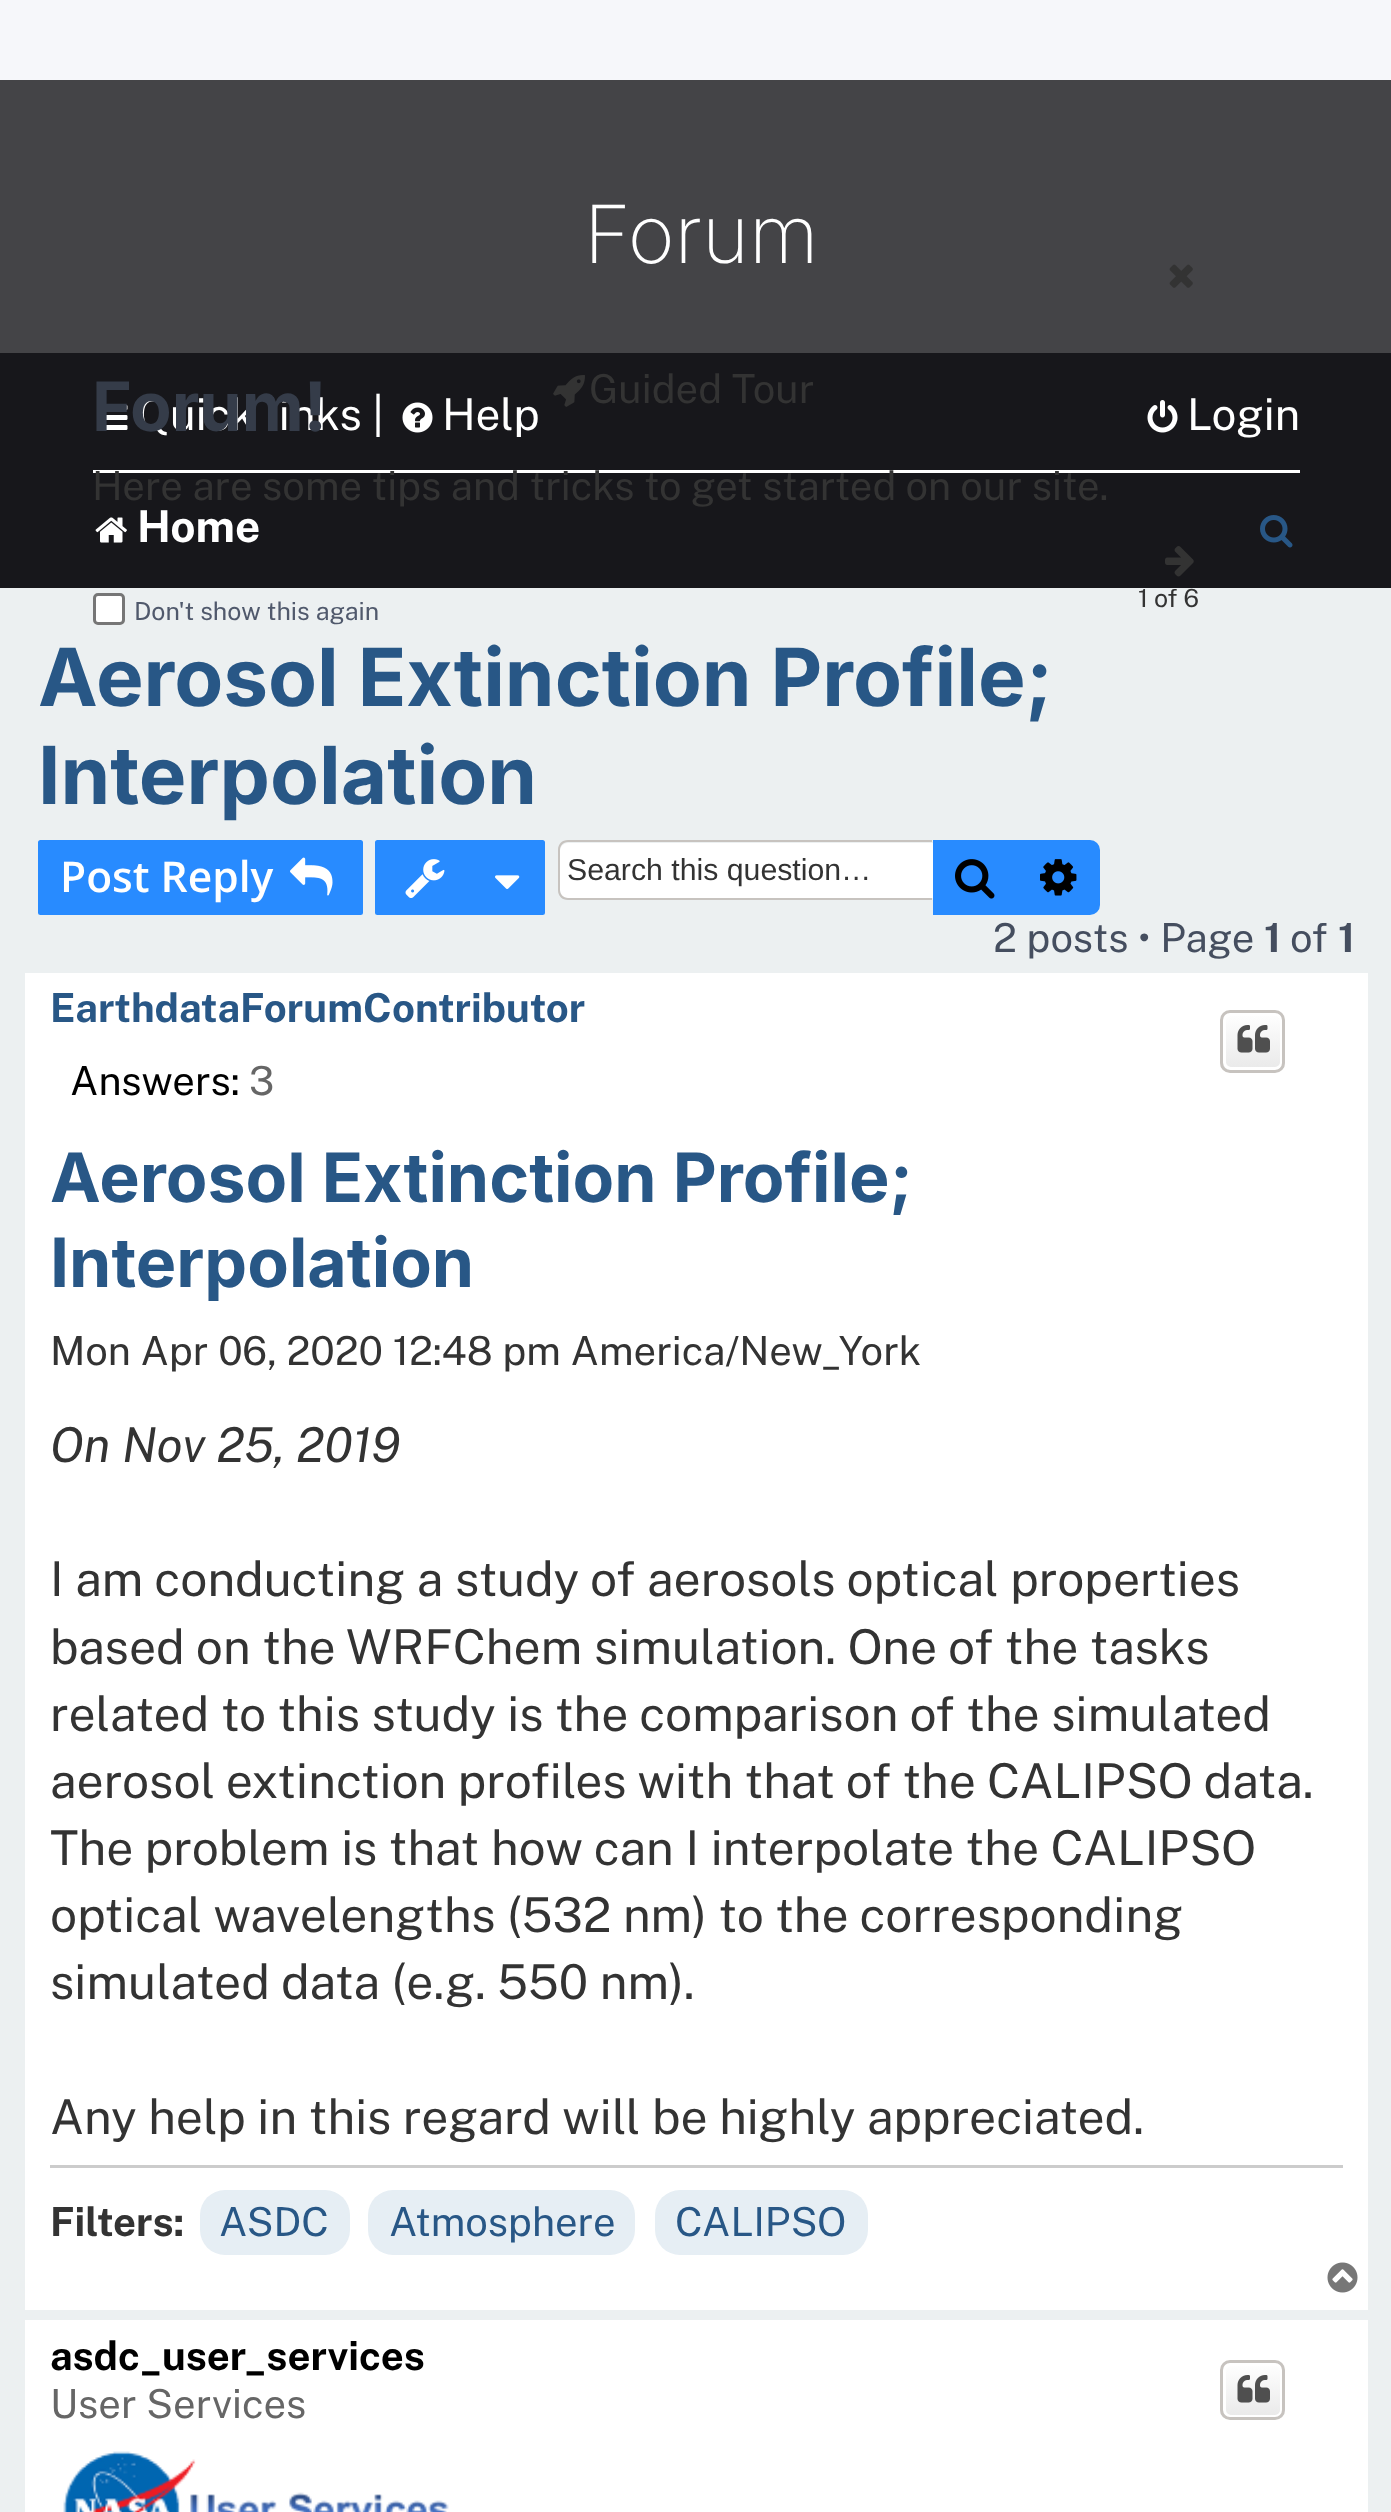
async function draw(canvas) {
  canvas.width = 1391
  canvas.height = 2512
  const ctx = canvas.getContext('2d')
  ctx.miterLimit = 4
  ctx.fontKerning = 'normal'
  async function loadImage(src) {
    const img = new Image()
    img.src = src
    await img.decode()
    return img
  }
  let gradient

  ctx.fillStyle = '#f6f7fa'
  ctx.fillRect(0, 0, 1391, 2512)
  ctx.fillStyle = '#ecf0f1'
  ctx.fillRect(0, 588, 1391, 1924)
  ctx.fillStyle = '#444447'
  ctx.fillRect(0, 80, 1391, 273)
  ctx.font = '200 80px Inter'
  ctx.fillStyle = '#fff'
  ctx.fillText('Forum', 584, 263)
  ctx.fillStyle = '#17171b'
  ctx.fillRect(0, 353, 1391, 235)
  ctx.drawImage(await loadImage('image0.png'), 553, 375, 32, 32)
  ctx.font = '40px Public Sans'
  ctx.fillStyle = '#333'
  ctx.fillText('Guided Tour', 589, 403)
  ctx.drawImage(await loadImage('image1.png'), 1169, 264, 24, 24)
  ctx.drawImage(await loadImage('image3.png'), 97, 405, 31, 25)
  ctx.font = '44px Public Sans'
  ctx.fillStyle = '#fff'
  ctx.fillText('Quick links |', 137, 430)
  ctx.font = 'bold 68px Inter'
  ctx.fillStyle = '#353c49'
  ctx.fillText('Forum!', 92, 431)
  ctx.fillStyle = '#fff'
  ctx.fillRect(93, 470, 1207, 3)
  ctx.font = '40px Public Sans'
  ctx.fillStyle = '#333'
  ctx.fillText('Here are some tips and tricks to get started on our site.', 92, 500)
  ctx.drawImage(await loadImage('image2.png'), 1165, 546, 29, 31)
  ctx.font = '25px Public Sans'
  ctx.fillText('1 of 6', 1138, 607)
  ctx.fillStyle = '#fff'
  ctx.beginPath()
  ctx.roundRect(94.5, 594.5, 29, 29, 3.5)
  ctx.fill()
  ctx.strokeStyle = '#767676'
  ctx.lineWidth = 3
  ctx.stroke()
  ctx.fillStyle = '#50596c'
  ctx.fillText('Don\'t show this again', 134, 620)
  ctx.drawImage(await loadImage('image4.png'), 402, 402, 31, 31)
  ctx.font = '44px Public Sans'
  ctx.fillStyle = '#fff'
  ctx.fillText('Help', 442, 430)
  ctx.drawImage(await loadImage('image5.png'), 1147, 400, 31, 33)
  ctx.fillText('Login', 1187, 430)
  ctx.drawImage(await loadImage('image6.png'), 95, 517, 32, 26)
  ctx.font = 'bold 44px Public Sans'
  ctx.fillText('Home', 137, 542)
  ctx.drawImage(await loadImage('image7.png'), 1260, 515, 33, 33)
  ctx.font = 'bold 80px Inter'
  ctx.fillStyle = '#285786'
  ctx.fillText('Aerosol Extinction Profile;', 38, 706)
  ctx.fillText('Interpolation', 38, 804)
  ctx.fillStyle = '#288bff'
  ctx.beginPath()
  ctx.roundRect(39.5, 841.5, 322, 72, 1)
  ctx.fill()
  ctx.strokeStyle = '#288bff'
  ctx.stroke()
  ctx.font = '600 42.5px Open Sans'
  ctx.fillStyle = '#fff'
  ctx.fillText('Post Reply', 60, 892)
  ctx.drawImage(await loadImage('image8.png'), 290, 857, 43, 39)
  ctx.fillStyle = '#288bff'
  ctx.beginPath()
  ctx.roundRect(376.5, 841.5, 167, 72, 1)
  ctx.fill()
  ctx.stroke()
  ctx.drawImage(await loadImage('image9.png'), 405, 859, 40, 39)
  ctx.drawImage(await loadImage('image10.png'), 495, 875, 25, 14)
  ctx.fillStyle = '#fff'
  ctx.beginPath()
  ctx.roundRect(560, 843, 373, 55, [8, 0, 0, 8])
  ctx.fill()
  ctx.fillStyle = '#c7c3bf'
  ctx.beginPath()
  ctx.moveTo(568, 840)
  ctx.lineTo(932, 840)
  ctx.lineTo(932, 900)
  ctx.lineTo(568, 900)
  ctx.bezierCurveTo(562, 900, 558, 896, 558, 890)
  ctx.lineTo(558, 850)
  ctx.bezierCurveTo(558, 844, 562, 840, 568, 840)
  ctx.closePath()
  ctx.moveTo(568, 842)
  ctx.lineTo(932, 842)
  ctx.lineTo(932, 898)
  ctx.lineTo(568, 898)
  ctx.bezierCurveTo(563, 898, 560, 894, 560, 890)
  ctx.lineTo(560, 850)
  ctx.bezierCurveTo(560, 846, 563, 842, 568, 842)
  ctx.closePath()
  ctx.fill('evenodd')
  ctx.font = '30.25px Liberation Sans'
  ctx.fillStyle = '#333'
  ctx.fillText('Search this question…', 567, 880)
  ctx.fillStyle = '#288bff'
  ctx.fillRect(933, 840, 85, 75)
  ctx.drawImage(await loadImage('image11.png'), 955, 859, 40, 40)
  ctx.beginPath()
  ctx.roundRect(1019.5, 841.5, 79, 72, [0, 8.5, 8.5, 0])
  ctx.fill()
  ctx.stroke()
  ctx.drawImage(await loadImage('image12.png'), 1040, 859, 37, 37)
  ctx.font = '40px Public Sans'
  ctx.fillStyle = '#454e5f'
  ctx.fillText('2 posts • Page', 993, 952)
  ctx.font = 'bold 40px Public Sans'
  ctx.fillText('1', 1264, 952)
  ctx.font = '40px Public Sans'
  ctx.fillText('of', 1290, 952)
  ctx.font = 'bold 40px Public Sans'
  ctx.fillText('1', 1338, 952)
  ctx.fillStyle = '#fff'
  ctx.fillRect(25, 973, 1343, 1337)
  ctx.fillStyle = '#285786'
  ctx.fillText('EarthdataForumContributor', 50, 1022)
  ctx.font = '40px Public Sans'
  ctx.fillStyle = '#000'
  ctx.fillText('Answers:', 70, 1095)
  ctx.fillStyle = '#666'
  ctx.fillText('3', 249, 1095)
  ctx.save()
  ctx.beginPath()
  ctx.roundRect(1220, 1010, 65, 63, 10)
  ctx.clip()
  gradient = ctx.createLinearGradient(1253, 1013, 1253, 1070)
  gradient.addColorStop(0, '#fff')
  gradient.addColorStop(1, '#e9e9e9')
  ctx.fillStyle = gradient
  ctx.fillRect(1220, 1013, 65, 57)
  ctx.restore()
  ctx.beginPath()
  ctx.roundRect(1224.5, 1014.5, 57, 54, 6.5)
  ctx.strokeStyle = '#fff'
  ctx.stroke()
  ctx.beginPath()
  ctx.roundRect(1221.5, 1011.5, 62, 60, 8.5)
  ctx.strokeStyle = '#c7c3bf'
  ctx.stroke()
  ctx.drawImage(await loadImage('image13.png'), 1237, 1025, 33, 28)
  ctx.font = 'bold 68px Inter'
  ctx.fillStyle = '#285786'
  ctx.fillText('Aerosol Extinction Profile;', 50, 1202)
  ctx.fillText('Interpolation', 50, 1287)
  ctx.font = '40px Public Sans'
  ctx.fillStyle = '#333'
  ctx.fillText('Mon Apr 06, 2020 12:48 pm America/New_York', 50, 1365)
  ctx.font = 'italic 48px Public Sans'
  ctx.fillText('On Nov 25, 2019', 50, 1462)
  ctx.font = '48px Public Sans'
  ctx.fillText('I am conducting a study of aerosols optical properties', 50, 1596)
  ctx.fillText('based on the WRFChem simulation. One of the tasks', 50, 1664)
  ctx.fillText('related to this study is the comparison of the simulated', 50, 1731)
  ctx.wordSpacing = '-0.25px'
  ctx.fillText('aerosol extinction profiles with that of the CALIPSO data.', 50, 1798)
  ctx.wordSpacing = '0px'
  ctx.fillText('The problem is that how can I interpolate the CALIPSO', 50, 1865)
  ctx.fillText('optical wavelengths (532 nm) to the corresponding', 50, 1932)
  ctx.fillText('simulated data (e.g. 550 nm).', 50, 1999)
  ctx.fillText('Any help in this regard will be highly appreciated.', 50, 2134)
  ctx.fillStyle = '#ccc'
  ctx.fillRect(50, 2165, 1293, 3)
  ctx.font = 'bold 40px Public Sans'
  ctx.fillStyle = '#333'
  ctx.fillText('Filters:', 50, 2236)
  ctx.fillStyle = '#e6eef4'
  ctx.beginPath()
  ctx.roundRect(200, 2190, 150, 65, 25)
  ctx.fill()
  ctx.font = '40px Public Sans'
  ctx.fillStyle = '#285786'
  ctx.fillText('ASDC', 219, 2236)
  ctx.fillStyle = '#e6eef4'
  ctx.beginPath()
  ctx.roundRect(368, 2190, 267, 65, 25)
  ctx.fill()
  ctx.fillStyle = '#285786'
  ctx.fillText('Atmosphere', 389, 2236)
  ctx.fillStyle = '#e6eef4'
  ctx.beginPath()
  ctx.roundRect(655, 2190, 213, 65, 25)
  ctx.fill()
  ctx.fillStyle = '#285786'
  ctx.fillText('CALIPSO', 675, 2236)
  ctx.drawImage(await loadImage('image14.png'), 1327, 2262, 31, 31)
  ctx.fillStyle = '#fff'
  ctx.fillRect(25, 2320, 1343, 192)
  ctx.font = 'bold 40px Public Sans'
  ctx.fillStyle = '#000'
  ctx.fillText('asdc_user_services', 50, 2370)
  ctx.font = '40px Public Sans'
  ctx.fillStyle = '#666'
  ctx.fillText('User Services', 50, 2418)
  ctx.drawImage(await loadImage('image15.png'), 63, 2451, 386, 61)
  ctx.save()
  ctx.beginPath()
  ctx.roundRect(1220, 2360, 65, 60, 10)
  ctx.clip()
  gradient = ctx.createLinearGradient(1253, 2363, 1253, 2418)
  gradient.addColorStop(0, '#fff')
  gradient.addColorStop(1, '#e9e9e9')
  ctx.fillStyle = gradient
  ctx.fillRect(1220, 2363, 65, 55)
  ctx.restore()
  ctx.beginPath()
  ctx.roundRect(1224.5, 2364.5, 57, 52, 6.5)
  ctx.strokeStyle = '#fff'
  ctx.stroke()
  ctx.beginPath()
  ctx.roundRect(1221.5, 2361.5, 62, 57, 8.5)
  ctx.strokeStyle = '#c7c3bf'
  ctx.stroke()
  ctx.drawImage(await loadImage('image16.png'), 1237, 2375, 33, 28)
}

draw(document.querySelector('canvas'))
